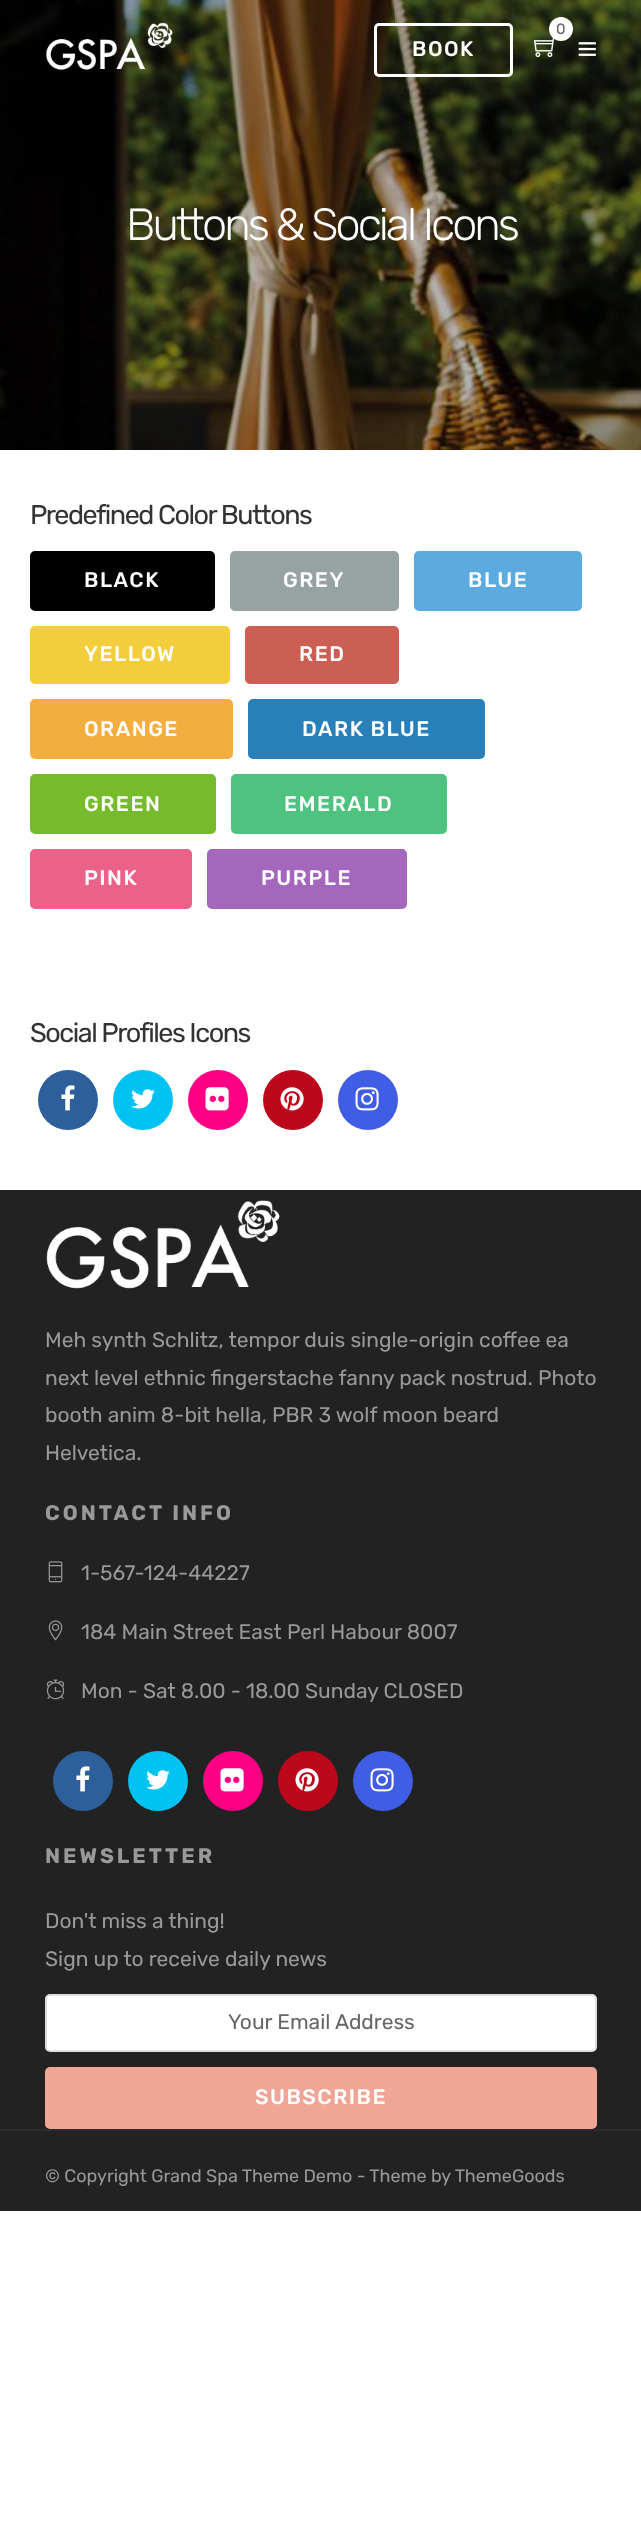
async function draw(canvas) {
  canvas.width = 641
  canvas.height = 2526
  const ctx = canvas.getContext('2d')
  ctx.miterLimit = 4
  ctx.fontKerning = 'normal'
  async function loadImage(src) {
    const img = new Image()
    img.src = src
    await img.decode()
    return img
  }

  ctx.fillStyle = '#fff'
  ctx.fillRect(0, 0, 641, 2526)
  ctx.drawImage(await loadImage('image3.png'), 0, 0, 641, 450)
  ctx.drawImage(await loadImage('image0.png'), 45, 22, 128, 48)
  ctx.drawImage(await loadImage('image1.png'), 533, 37, 22, 21)
  ctx.drawImage(await loadImage('image2.png'), 578, 42, 18, 14)
  ctx.fillStyle = '#0000001a'
  ctx.filter = 'blur(4px)'
  ctx.beginPath()
  ctx.roundRect(549, 18, 24, 24, 12)
  ctx.fill()
  ctx.filter = 'none'
  ctx.fillStyle = '#fff'
  ctx.beginPath()
  ctx.arc(561, 29, 12, 0, 2 * Math.PI)
  ctx.fill()
  ctx.font = '15px Rubik'
  ctx.fillStyle = '#666'
  ctx.fillText('0', 556, 34)
  ctx.beginPath()
  ctx.roundRect(375.5, 24.5, 136, 51, 3.5)
  ctx.strokeStyle = '#fff'
  ctx.lineWidth = 3
  ctx.stroke()
  ctx.letterSpacing = '1.5px'
  ctx.font = '500 21px Rubik'
  ctx.fillStyle = '#fff'
  ctx.fillText('BOOK', 412, 56)
  ctx.letterSpacing = '-3px'
  ctx.font = '300 45px Rubik'
  ctx.fillText('Buttons & Social Icons', 126, 240)
  ctx.letterSpacing = '-1.5px'
  ctx.font = '27px Rubik'
  ctx.fillStyle = '#333'
  ctx.fillText('Predefined Color Buttons', 30, 524)
  ctx.fillStyle = '#000'
  ctx.beginPath()
  ctx.roundRect(31, 552, 183, 58, 4)
  ctx.fill()
  ctx.strokeStyle = '#000'
  ctx.lineWidth = 2
  ctx.stroke()
  ctx.letterSpacing = '1.5px'
  ctx.font = '500 21px Rubik'
  ctx.fillStyle = '#fff'
  ctx.fillText('BLACK', 84, 587)
  ctx.fillStyle = '#97a2a2'
  ctx.beginPath()
  ctx.roundRect(231, 552, 167, 58, 4)
  ctx.fill()
  ctx.strokeStyle = '#97a2a2'
  ctx.stroke()
  ctx.fillStyle = '#fff'
  ctx.fillText('GREY', 283, 587)
  ctx.fillStyle = '#5babe1'
  ctx.beginPath()
  ctx.roundRect(415, 552, 166, 58, 4)
  ctx.fill()
  ctx.strokeStyle = '#5babe1'
  ctx.stroke()
  ctx.fillStyle = '#fff'
  ctx.fillText('BLUE', 468, 587)
  ctx.fillStyle = '#f2ce3e'
  ctx.beginPath()
  ctx.roundRect(31, 627, 198, 56, 4)
  ctx.fill()
  ctx.strokeStyle = '#f2ce3e'
  ctx.stroke()
  ctx.fillStyle = '#fff'
  ctx.fillText('YELLOW', 84, 661)
  ctx.fillStyle = '#cb5f54'
  ctx.beginPath()
  ctx.roundRect(246, 627, 152, 56, 4)
  ctx.fill()
  ctx.strokeStyle = '#cb5f54'
  ctx.stroke()
  ctx.fillStyle = '#fff'
  ctx.fillText('RED', 299, 661)
  ctx.fillStyle = '#f4ae40'
  ctx.beginPath()
  ctx.roundRect(31, 700, 201, 58, 4)
  ctx.fill()
  ctx.strokeStyle = '#f4ae40'
  ctx.stroke()
  ctx.fillStyle = '#fff'
  ctx.fillText('ORANGE', 84, 736)
  ctx.fillStyle = '#2980b9'
  ctx.beginPath()
  ctx.roundRect(249, 700, 235, 58, 4)
  ctx.fill()
  ctx.strokeStyle = '#2980b9'
  ctx.stroke()
  ctx.fillStyle = '#fff'
  ctx.fillText('DARK BLUE', 302, 736)
  ctx.fillStyle = '#76bb2c'
  ctx.beginPath()
  ctx.roundRect(31, 775, 184, 58, 4)
  ctx.fill()
  ctx.strokeStyle = '#76bb2c'
  ctx.stroke()
  ctx.fillStyle = '#fff'
  ctx.fillText('GREEN', 84, 811)
  ctx.fillStyle = '#4ec380'
  ctx.beginPath()
  ctx.roundRect(232, 775, 214, 58, 4)
  ctx.fill()
  ctx.strokeStyle = '#4ec380'
  ctx.stroke()
  ctx.fillStyle = '#fff'
  ctx.fillText('EMERALD', 284, 811)
  ctx.fillStyle = '#ea6288'
  ctx.beginPath()
  ctx.roundRect(31, 850, 160, 58, 4)
  ctx.fill()
  ctx.strokeStyle = '#ea6288'
  ctx.stroke()
  ctx.fillStyle = '#fff'
  ctx.fillText('PINK', 84, 885)
  ctx.fillStyle = '#a368bc'
  ctx.beginPath()
  ctx.roundRect(208, 850, 198, 58, 4)
  ctx.fill()
  ctx.strokeStyle = '#a368bc'
  ctx.stroke()
  ctx.fillStyle = '#fff'
  ctx.fillText('PURPLE', 261, 885)
  ctx.letterSpacing = '-1.5px'
  ctx.font = '27px Rubik'
  ctx.fillStyle = '#333'
  ctx.fillText('Social Profiles Icons', 30, 1042)
  ctx.fillStyle = '#2d5f9a'
  ctx.beginPath()
  ctx.arc(68, 1100, 30, 0, 2 * Math.PI)
  ctx.fill()
  ctx.drawImage(await loadImage('image4.png'), 61, 1085, 14, 26)
  ctx.fillStyle = '#00c3f3'
  ctx.beginPath()
  ctx.arc(143, 1100, 30, 0, 2 * Math.PI)
  ctx.fill()
  ctx.drawImage(await loadImage('image5.png'), 131, 1089, 24, 20)
  ctx.fillStyle = '#ff0084'
  ctx.beginPath()
  ctx.arc(218, 1100, 30, 0, 2 * Math.PI)
  ctx.fill()
  ctx.drawImage(await loadImage('image6.png'), 205, 1087, 24, 24)
  ctx.fillStyle = '#bd081c'
  ctx.beginPath()
  ctx.arc(293, 1100, 30, 0, 2 * Math.PI)
  ctx.fill()
  ctx.drawImage(await loadImage('image7.png'), 280, 1087, 24, 24)
  ctx.fillStyle = '#405de6'
  ctx.beginPath()
  ctx.arc(368, 1100, 30, 0, 2 * Math.PI)
  ctx.fill()
  ctx.drawImage(await loadImage('image8.png'), 355, 1087, 24, 24)
  ctx.fillStyle = '#222'
  ctx.fillRect(0, 1190, 641, 939)
  ctx.drawImage(await loadImage('image9.png'), 46, 1200, 234, 89)
  ctx.letterSpacing = '0px'
  ctx.font = '21px Rubik'
  ctx.fillStyle = '#999'
  ctx.fillText('Meh synth Schlitz, tempor duis single-origin coffee ea', 45, 1347)
  ctx.fillText('next level ethnic fingerstache fanny pack nostrud. Photo', 45, 1385)
  ctx.fillText('booth anim 8-bit hella, PBR 3 wolf moon beard', 45, 1422)
  ctx.fillText('Helvetica.', 45, 1460)
  ctx.letterSpacing = '3px'
  ctx.font = 'bold 21px Rubik'
  ctx.fillText('CONTACT INFO', 45, 1520)
  ctx.drawImage(await loadImage('image10.png'), 48, 1561, 15, 22)
  ctx.letterSpacing = '0px'
  ctx.font = '21px Rubik'
  ctx.fillText('1-567-124-44227', 81, 1580)
  ctx.drawImage(await loadImage('image11.png'), 48, 1620, 15, 21)
  ctx.fillText('184 Main Street East Perl Habour 8007', 81, 1639)
  ctx.drawImage(await loadImage('image12.png'), 46, 1679, 19, 21)
  ctx.fillText('Mon - Sat 8.00 - 18.00 Sunday CLOSED', 81, 1698)
  ctx.fillStyle = '#2d5f9a'
  ctx.beginPath()
  ctx.arc(83, 1781, 30, 0, 2 * Math.PI)
  ctx.fill()
  ctx.drawImage(await loadImage('image4.png'), 76, 1766, 14, 26)
  ctx.fillStyle = '#00c3f3'
  ctx.beginPath()
  ctx.arc(158, 1781, 30, 0, 2 * Math.PI)
  ctx.fill()
  ctx.drawImage(await loadImage('image5.png'), 146, 1770, 24, 20)
  ctx.fillStyle = '#ff0084'
  ctx.beginPath()
  ctx.arc(233, 1781, 30, 0, 2 * Math.PI)
  ctx.fill()
  ctx.drawImage(await loadImage('image6.png'), 220, 1768, 24, 24)
  ctx.fillStyle = '#bd081c'
  ctx.beginPath()
  ctx.arc(308, 1781, 30, 0, 2 * Math.PI)
  ctx.fill()
  ctx.drawImage(await loadImage('image7.png'), 295, 1768, 24, 24)
  ctx.fillStyle = '#405de6'
  ctx.beginPath()
  ctx.arc(383, 1781, 30, 0, 2 * Math.PI)
  ctx.fill()
  ctx.drawImage(await loadImage('image8.png'), 370, 1768, 24, 24)
  ctx.letterSpacing = '3px'
  ctx.font = 'bold 21px Rubik'
  ctx.fillStyle = '#999'
  ctx.fillText('NEWSLETTER', 45, 1863)
  ctx.letterSpacing = '0px'
  ctx.font = '21px Rubik'
  ctx.fillText('Don\'t miss a thing!', 45, 1928)
  ctx.fillText('Sign up to receive daily news', 45, 1966)
  ctx.fillStyle = '#fff'
  ctx.beginPath()
  ctx.roundRect(46, 1995, 550, 56, 4)
  ctx.fill()
  ctx.strokeStyle = '#dce0e0'
  ctx.stroke()
  ctx.fillStyle = '#666'
  ctx.fillText('Your Email Address', 228, 2029)
  ctx.fillStyle = '#efa697'
  ctx.beginPath()
  ctx.roundRect(46.5, 2068.5, 549, 59, 3.5)
  ctx.fill()
  ctx.strokeStyle = '#efa697'
  ctx.lineWidth = 3
  ctx.stroke()
  ctx.letterSpacing = '1.5px'
  ctx.font = '500 21px Rubik'
  ctx.fillStyle = '#fff'
  ctx.fillText('SUBSCRIBE', 255, 2104)
  ctx.fillStyle = '#222'
  ctx.fillRect(0, 2131, 641, 80)
  ctx.fillStyle = '#2c2c2c'
  ctx.fillRect(0, 2129, 641, 2)
  ctx.letterSpacing = '0px'
  ctx.font = '18px Rubik'
  ctx.fillStyle = '#999'
  ctx.fillText('© Copyright Grand Spa Theme Demo - Theme by ThemeGoods', 45, 2182)
}

draw(document.querySelector('canvas'))
